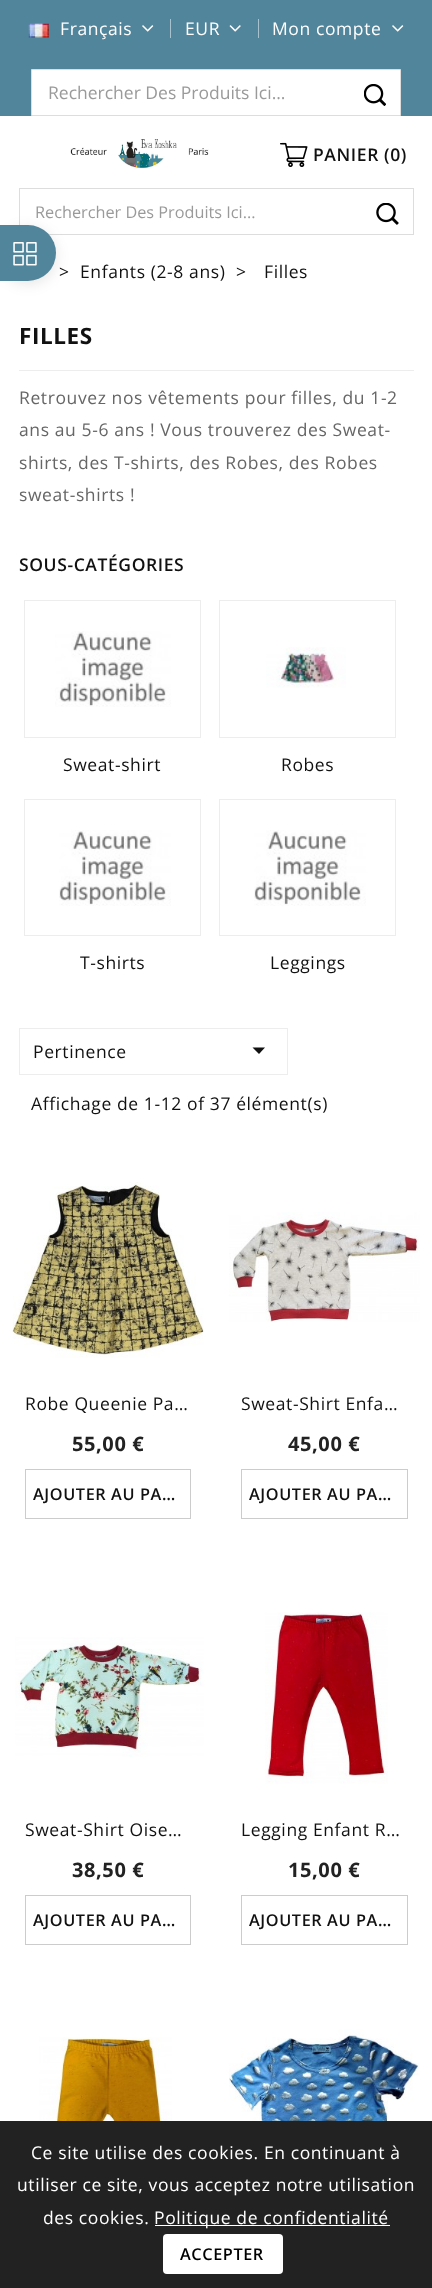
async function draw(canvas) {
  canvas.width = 432
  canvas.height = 2288
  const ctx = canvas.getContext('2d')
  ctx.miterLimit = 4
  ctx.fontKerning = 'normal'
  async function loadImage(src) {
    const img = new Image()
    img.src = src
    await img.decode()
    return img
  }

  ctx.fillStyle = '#fff'
  ctx.fillRect(0, 0, 432, 2288)
  ctx.fillStyle = '#51859b'
  ctx.fillRect(0, 0, 432, 116)
  ctx.drawImage(await loadImage('image0.png'), 28, 23, 21, 15)
  ctx.letterSpacing = '0.6px'
  ctx.font = '17.5px Open Sans'
  ctx.fillStyle = '#fff'
  ctx.fillText('Français', 60, 35)
  ctx.drawImage(await loadImage('image1.png'), 142, 25, 12, 7)
  ctx.fillStyle = '#a8c2cd'
  ctx.fillRect(170, 19, 1, 19)
  ctx.fillStyle = '#fff'
  ctx.fillText('EUR', 185, 35)
  ctx.drawImage(await loadImage('image2.png'), 229, 25, 12, 7)
  ctx.fillStyle = '#a8c2cd'
  ctx.fillRect(258, 19, 1, 19)
  ctx.fillStyle = '#fff'
  ctx.fillText('Mon compte', 272, 35)
  ctx.drawImage(await loadImage('image1.png'), 392, 25, 12, 7)
  ctx.beginPath()
  ctx.rect(31.5, 69.5, 369, 46)
  ctx.fill()
  ctx.strokeStyle = '#ddd'
  ctx.stroke()
  ctx.letterSpacing = '0px'
  ctx.fillStyle = '#9a9a9a'
  ctx.fillText('Rechercher Des Produits Ici...', 48, 99)
  ctx.drawImage(await loadImage('image3.png'), 364, 84, 22, 22)
  ctx.drawImage(await loadImage('image4.png'), 70, 139, 139, 30)
  ctx.drawImage(await loadImage('image5.png'), 280, 142, 28, 25)
  ctx.letterSpacing = '0.6px'
  ctx.font = '600 17.5px Open Sans'
  ctx.fillStyle = '#111'
  ctx.fillText('PANIER (0)', 313, 161)
  ctx.strokeRect(19.5, 188.5, 394, 46)
  ctx.letterSpacing = '0px'
  ctx.font = '16.25px Open Sans'
  ctx.fillStyle = '#9a9a9a'
  ctx.fillText('Rechercher Des Produits Ici...', 35, 218)
  ctx.drawImage(await loadImage('image6.png'), 376, 203, 23, 22)
  ctx.fillStyle = '#0000001a'
  ctx.filter = 'blur(7px)'
  ctx.beginPath()
  ctx.roundRect(0, 228, 56, 56, 28)
  ctx.fill()
  ctx.filter = 'none'
  ctx.fillStyle = '#51859b'
  ctx.beginPath()
  ctx.roundRect(0, 225, 56, 56, [0, 28, 28, 0])
  ctx.fill()
  ctx.drawImage(await loadImage('image7.png'), 13, 242, 24, 24)
  ctx.letterSpacing = '0.6px'
  ctx.font = '17.5px Open Sans'
  ctx.fillStyle = '#111'
  ctx.fillText('>', 59, 278)
  ctx.fillText('Enfants (2-8 ans)', 80, 278)
  ctx.fillText('>', 236, 278)
  ctx.fillText('Filles', 264, 278)
  ctx.fillStyle = '#ededed'
  ctx.fillRect(19, 370, 395, 1)
  ctx.font = 'bold 22.5px Open Sans'
  ctx.fillStyle = '#111'
  ctx.fillText('FILLES', 19, 344)
  ctx.font = '17.5px Open Sans'
  ctx.fillStyle = '#666'
  ctx.fillText('Retrouvez nos vêtements pour filles, du 1-2', 19, 404)
  ctx.fillText('ans au 5-6 ans ! Vous trouverez des Sweat-', 19, 436)
  ctx.fillText('shirts, des T-shirts, des Robes, des Robes', 19, 469)
  ctx.fillText('sweat-shirts !', 19, 501)
  ctx.font = '600 17.5px Open Sans'
  ctx.fillStyle = '#111'
  ctx.fillText('SOUS-CATÉGORIES', 19, 571)
  ctx.strokeStyle = '#ededed'
  ctx.strokeRect(24.5, 600.5, 176, 137)
  ctx.drawImage(await loadImage('image8.png'), 55, 631, 116, 76)
  ctx.font = '17.5px Open Sans'
  ctx.fillText('Sweat-shirt', 63, 771)
  ctx.strokeRect(219.5, 600.5, 176, 137)
  ctx.drawImage(await loadImage('image9.png'), 266, 647, 80, 41)
  ctx.fillText('Robes', 281, 771)
  ctx.strokeRect(24.5, 799.5, 176, 136)
  ctx.drawImage(await loadImage('image10.png'), 59, 830, 112, 76)
  ctx.fillText('T-shirts', 80, 969)
  ctx.strokeRect(219.5, 799.5, 176, 136)
  ctx.drawImage(await loadImage('image10.png'), 254, 830, 112, 76)
  ctx.fillText('Leggings', 270, 969)
  ctx.strokeRect(19.5, 1028.5, 268, 46)
  ctx.fillText('Pertinence', 33, 1058)
  ctx.beginPath()
  ctx.moveTo(252.5, 1047.5)
  ctx.lineTo(265, 1047.5)
  ctx.lineTo(259, 1054)
  ctx.closePath()
  ctx.fill()
  ctx.fillText('Affichage de 1-12 of 37 élément(s)', 31, 1110)
  ctx.drawImage(await loadImage('image11.png'), 12, 1182, 192, 176)
  ctx.fillText('Robe Queenie Pa…', 25, 1410)
  ctx.font = 'bold 20px Open Sans'
  ctx.fillStyle = '#222'
  ctx.fillText('55,00 €', 72, 1451)
  ctx.strokeStyle = '#ccc'
  ctx.strokeRect(25.5, 1469.5, 165, 49)
  ctx.font = '600 16.25px Open Sans'
  ctx.fillStyle = '#111'
  ctx.fillText('AJOUTER AU PA…', 33, 1500)
  ctx.drawImage(await loadImage('image12.png'), 229, 1212, 191, 110)
  ctx.font = '17.5px Open Sans'
  ctx.fillText('Sweat-Shirt Enfa…', 241, 1410)
  ctx.font = 'bold 20px Open Sans'
  ctx.fillStyle = '#222'
  ctx.fillText('45,00 €', 288, 1451)
  ctx.strokeRect(241.5, 1469.5, 166, 49)
  ctx.font = '600 16.25px Open Sans'
  ctx.fillStyle = '#111'
  ctx.fillText('AJOUTER AU PA…', 249, 1500)
  ctx.drawImage(await loadImage('image13.png'), 15, 1637, 189, 120)
  ctx.font = '17.5px Open Sans'
  ctx.fillText('Sweat-Shirt Oise…', 25, 1836)
  ctx.font = 'bold 20px Open Sans'
  ctx.fillStyle = '#222'
  ctx.fillText('38,50 €', 72, 1877)
  ctx.strokeRect(25.5, 1895.5, 165, 49)
  ctx.font = '600 16.25px Open Sans'
  ctx.fillStyle = '#111'
  ctx.fillText('AJOUTER AU PA…', 33, 1926)
  ctx.drawImage(await loadImage('image14.png'), 265, 1612, 123, 172)
  ctx.font = '17.5px Open Sans'
  ctx.fillText('Legging Enfant R…', 241, 1836)
  ctx.font = 'bold 20px Open Sans'
  ctx.fillStyle = '#222'
  ctx.fillText('15,00 €', 288, 1877)
  ctx.strokeRect(241.5, 1895.5, 166, 49)
  ctx.font = '600 16.25px Open Sans'
  ctx.fillStyle = '#111'
  ctx.fillText('AJOUTER AU PA…', 249, 1926)
  ctx.drawImage(await loadImage('image15.png'), 39, 2037, 133, 84)
  ctx.drawImage(await loadImage('image16.png'), 229, 2029, 191, 92)
  ctx.fillStyle = '#222'
  ctx.fillRect(0, 2121, 432, 167)
  ctx.font = '17.5px Open Sans'
  ctx.fillStyle = '#fff'
  ctx.fillText('Ce site utilise des cookies. En continuant à', 31, 2159)
  ctx.fillText('utiliser ce site, vous acceptez notre utilisation', 17, 2191)
  ctx.fillText('des cookies.', 43, 2224)
  ctx.fillRect(155, 2225, 235, 1)
  ctx.fillText('Politique de confidentialité', 154, 2224)
  ctx.beginPath()
  ctx.roundRect(163, 2234, 120, 40, 4)
  ctx.fill()
  ctx.font = '600 16.25px Open Sans'
  ctx.fillStyle = '#000'
  ctx.fillText('ACCEPTER', 180, 2260)
}

draw(document.querySelector('canvas'))
